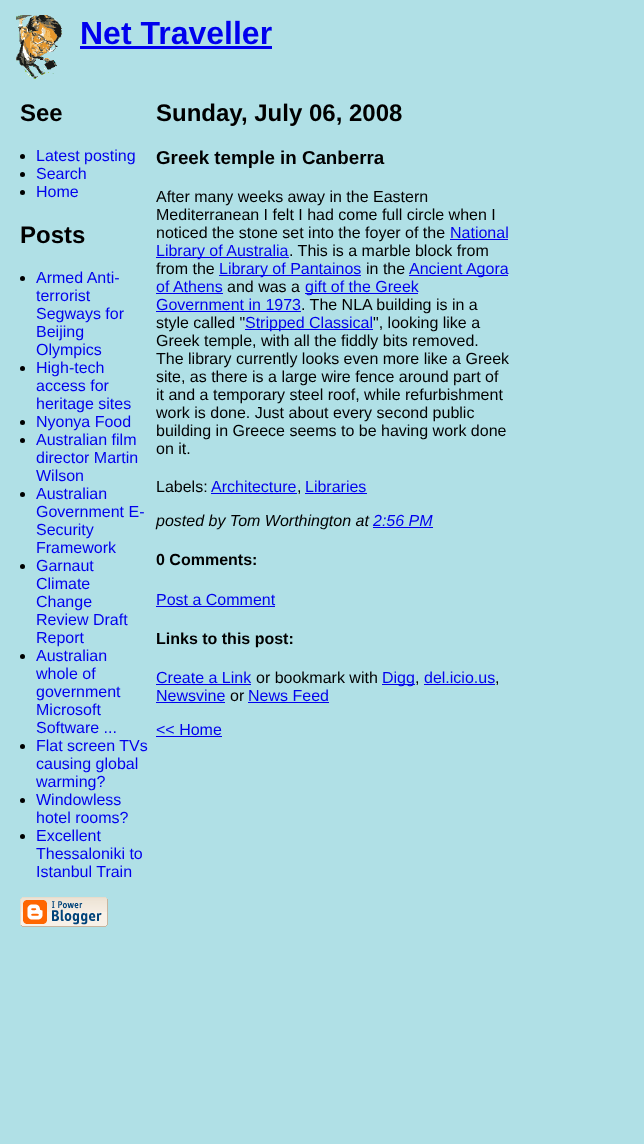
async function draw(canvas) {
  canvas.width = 644
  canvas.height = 1144
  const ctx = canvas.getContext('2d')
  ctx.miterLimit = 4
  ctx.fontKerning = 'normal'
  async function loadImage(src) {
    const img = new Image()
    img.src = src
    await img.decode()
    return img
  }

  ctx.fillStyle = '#b0e0e6'
  ctx.fillRect(0, 0, 644, 1144)
  ctx.drawImage(await loadImage('image0.png'), 16, 15, 47, 64)
  ctx.font = 'bold 32px Liberation Sans'
  ctx.fillStyle = '#00e'
  ctx.fillText('Net Traveller', 80, 44)
  ctx.fillRect(80, 46, 192, 3)
  ctx.font = 'bold 24px Liberation Sans'
  ctx.fillStyle = '#000'
  ctx.fillText('See', 20, 121)
  ctx.beginPath()
  ctx.arc(22.5, 156.5, 2.5, 0, 2 * Math.PI)
  ctx.fill()
  ctx.font = '16px Liberation Sans'
  ctx.fillStyle = '#00e'
  ctx.fillText('Latest posting', 36, 161)
  ctx.fillStyle = '#000'
  ctx.beginPath()
  ctx.arc(22.5, 174.5, 2.5, 0, 2 * Math.PI)
  ctx.fill()
  ctx.fillStyle = '#00e'
  ctx.fillText('Search', 36, 179)
  ctx.fillStyle = '#000'
  ctx.beginPath()
  ctx.arc(22.5, 192.5, 2.5, 0, 2 * Math.PI)
  ctx.fill()
  ctx.fillStyle = '#00e'
  ctx.fillText('Home', 36, 197)
  ctx.font = 'bold 24px Liberation Sans'
  ctx.fillStyle = '#000'
  ctx.fillText('Posts', 20, 243)
  ctx.beginPath()
  ctx.arc(22.5, 278.5, 2.5, 0, 2 * Math.PI)
  ctx.fill()
  ctx.font = '16px Liberation Sans'
  ctx.fillStyle = '#00e'
  ctx.fillText('Armed Anti-', 36, 283)
  ctx.fillText('terrorist', 36, 301)
  ctx.fillText('Segways for', 36, 319)
  ctx.fillText('Beijing', 36, 337)
  ctx.fillText('Olympics', 36, 355)
  ctx.fillStyle = '#000'
  ctx.beginPath()
  ctx.arc(22.5, 368.5, 2.5, 0, 2 * Math.PI)
  ctx.fill()
  ctx.fillStyle = '#00e'
  ctx.fillText('High-tech', 36, 373)
  ctx.fillText('access for', 36, 391)
  ctx.fillText('heritage sites', 36, 409)
  ctx.fillStyle = '#000'
  ctx.beginPath()
  ctx.arc(22.5, 422.5, 2.5, 0, 2 * Math.PI)
  ctx.fill()
  ctx.fillStyle = '#00e'
  ctx.fillText('Nyonya Food', 36, 427)
  ctx.fillStyle = '#000'
  ctx.beginPath()
  ctx.arc(22.5, 440.5, 2.5, 0, 2 * Math.PI)
  ctx.fill()
  ctx.fillStyle = '#00e'
  ctx.fillText('Australian film', 36, 445)
  ctx.fillText('director Martin', 36, 463)
  ctx.fillText('Wilson', 36, 481)
  ctx.fillStyle = '#000'
  ctx.beginPath()
  ctx.arc(22.5, 494.5, 2.5, 0, 2 * Math.PI)
  ctx.fill()
  ctx.fillStyle = '#00e'
  ctx.fillText('Australian', 36, 499)
  ctx.fillText('Government E-', 36, 517)
  ctx.fillText('Security', 36, 535)
  ctx.fillText('Framework', 36, 553)
  ctx.fillStyle = '#000'
  ctx.beginPath()
  ctx.arc(22.5, 566.5, 2.5, 0, 2 * Math.PI)
  ctx.fill()
  ctx.fillStyle = '#00e'
  ctx.fillText('Garnaut', 36, 571)
  ctx.fillText('Climate', 36, 589)
  ctx.fillText('Change', 36, 607)
  ctx.fillText('Review Draft', 36, 625)
  ctx.fillText('Report', 36, 643)
  ctx.fillStyle = '#000'
  ctx.beginPath()
  ctx.arc(22.5, 656.5, 2.5, 0, 2 * Math.PI)
  ctx.fill()
  ctx.fillStyle = '#00e'
  ctx.fillText('Australian', 36, 661)
  ctx.fillText('whole of', 36, 679)
  ctx.fillText('government', 36, 697)
  ctx.fillText('Microsoft', 36, 715)
  ctx.fillText('Software ...', 36, 733)
  ctx.fillStyle = '#000'
  ctx.beginPath()
  ctx.arc(22.5, 746.5, 2.5, 0, 2 * Math.PI)
  ctx.fill()
  ctx.fillStyle = '#00e'
  ctx.fillText('Flat screen TVs', 36, 751)
  ctx.fillText('causing global', 36, 769)
  ctx.fillText('warming?', 36, 787)
  ctx.fillStyle = '#000'
  ctx.beginPath()
  ctx.arc(22.5, 800.5, 2.5, 0, 2 * Math.PI)
  ctx.fill()
  ctx.fillStyle = '#00e'
  ctx.fillText('Windowless', 36, 805)
  ctx.fillText('hotel rooms?', 36, 823)
  ctx.fillStyle = '#000'
  ctx.beginPath()
  ctx.arc(22.5, 836.5, 2.5, 0, 2 * Math.PI)
  ctx.fill()
  ctx.fillStyle = '#00e'
  ctx.fillText('Excellent', 36, 841)
  ctx.fillText('Thessaloniki to', 36, 859)
  ctx.fillText('Istanbul Train', 36, 877)
  ctx.drawImage(await loadImage('image1.png'), 20, 897, 88, 30)
  ctx.font = 'bold 24px Liberation Sans'
  ctx.fillStyle = '#000'
  ctx.fillText('Sunday, July 06, 2008', 156, 121)
  ctx.font = 'bold 18.75px Liberation Sans'
  ctx.fillText('Greek temple in Canberra', 156, 164)
  ctx.font = '16px Liberation Sans'
  ctx.fillText('After many weeks away in the Eastern', 156, 202)
  ctx.fillText('Mediterranean I felt I had come full circle when I', 156, 220)
  ctx.fillText('noticed the stone set into the foyer of the', 156, 238)
  ctx.fillStyle = '#00e'
  ctx.fillText('National', 450, 238)
  ctx.fillRect(450, 239, 58, 1)
  ctx.fillRect(156, 257, 133, 1)
  ctx.fillText('Library of Australia', 156, 256)
  ctx.fillStyle = '#000'
  ctx.fillText('. This is a marble block from', 289, 256)
  ctx.fillText('from the', 156, 274)
  ctx.fillStyle = '#00e'
  ctx.fillRect(219, 275, 142, 1)
  ctx.fillText('Library of Pantainos', 219, 274)
  ctx.fillStyle = '#000'
  ctx.fillText('in the', 366, 274)
  ctx.fillStyle = '#00e'
  ctx.fillRect(409, 275, 99, 1)
  ctx.fillText('Ancient Agora', 409, 274)
  ctx.fillText('of Athens', 156, 292)
  ctx.fillRect(156, 293, 67, 1)
  ctx.fillStyle = '#000'
  ctx.fillText('and was a', 227, 292)
  ctx.fillStyle = '#00e'
  ctx.fillRect(305, 293, 113, 1)
  ctx.fillText('gift of the Greek', 305, 292)
  ctx.fillText('Government in 1973', 156, 310)
  ctx.fillRect(156, 311, 145, 1)
  ctx.fillStyle = '#000'
  ctx.fillText('. The NLA building is in a', 301, 310)
  ctx.fillText('style called "', 156, 328)
  ctx.fillStyle = '#00e'
  ctx.fillRect(245, 329, 128, 1)
  ctx.fillText('Stripped Classical', 245, 328)
  ctx.fillStyle = '#000'
  ctx.fillText('", looking like a', 373, 328)
  ctx.fillText('Greek temple, with all the fiddly bits removed.', 156, 346)
  ctx.fillText('The library currently looks even more like a Greek', 156, 364)
  ctx.fillText('site, as there is a large wire fence around part of', 156, 382)
  ctx.fillText('it and a temporary steel roof, while refurbishment', 156, 400)
  ctx.fillText('work is done. Just about every second public', 156, 418)
  ctx.fillText('building in Greece seems to be having work done', 156, 436)
  ctx.fillText('on it.', 156, 454)
  ctx.fillText('Labels:', 156, 492)
  ctx.fillStyle = '#00e'
  ctx.fillText('Architecture', 211, 492)
  ctx.fillRect(211, 493, 86, 1)
  ctx.fillStyle = '#000'
  ctx.fillText(',', 297, 492)
  ctx.fillStyle = '#00e'
  ctx.fillText('Libraries', 305, 492)
  ctx.fillRect(305, 493, 62, 1)
  ctx.font = 'italic 16px Liberation Sans'
  ctx.fillStyle = '#000'
  ctx.fillText('posted by Tom Worthington at', 156, 526)
  ctx.fillStyle = '#00e'
  ctx.fillRect(373, 527, 60, 1)
  ctx.fillText('2:56 PM', 373, 526)
  ctx.font = 'bold 16px Liberation Sans'
  ctx.fillStyle = '#000'
  ctx.fillText('0 Comments:', 156, 565)
  ctx.font = '16px Liberation Sans'
  ctx.fillStyle = '#00e'
  ctx.fillText('Post a Comment', 156, 605)
  ctx.fillRect(156, 606, 119, 1)
  ctx.font = 'bold 16px Liberation Sans'
  ctx.fillStyle = '#000'
  ctx.fillText('Links to this post:', 156, 644)
  ctx.font = '16px Liberation Sans'
  ctx.fillStyle = '#00e'
  ctx.fillText('Create a Link', 156, 683)
  ctx.fillRect(156, 684, 95, 1)
  ctx.fillStyle = '#000'
  ctx.fillText('or bookmark with', 256, 683)
  ctx.fillStyle = '#00e'
  ctx.fillRect(382, 684, 33, 1)
  ctx.fillText('Digg', 382, 683)
  ctx.fillStyle = '#000'
  ctx.fillText(',', 415, 683)
  ctx.fillStyle = '#00e'
  ctx.fillText('del.icio.us', 424, 683)
  ctx.fillRect(424, 684, 71, 1)
  ctx.fillStyle = '#000'
  ctx.fillText(',', 495, 683)
  ctx.fillStyle = '#00e'
  ctx.fillText('Newsvine', 156, 701)
  ctx.fillRect(156, 702, 69, 1)
  ctx.fillStyle = '#000'
  ctx.fillText('or', 230, 701)
  ctx.fillStyle = '#00e'
  ctx.fillText('News Feed', 248, 701)
  ctx.fillRect(248, 702, 81, 1)
  ctx.fillText('<< Home', 156, 735)
  ctx.fillRect(156, 736, 66, 1)
}

draw(document.querySelector('canvas'))
